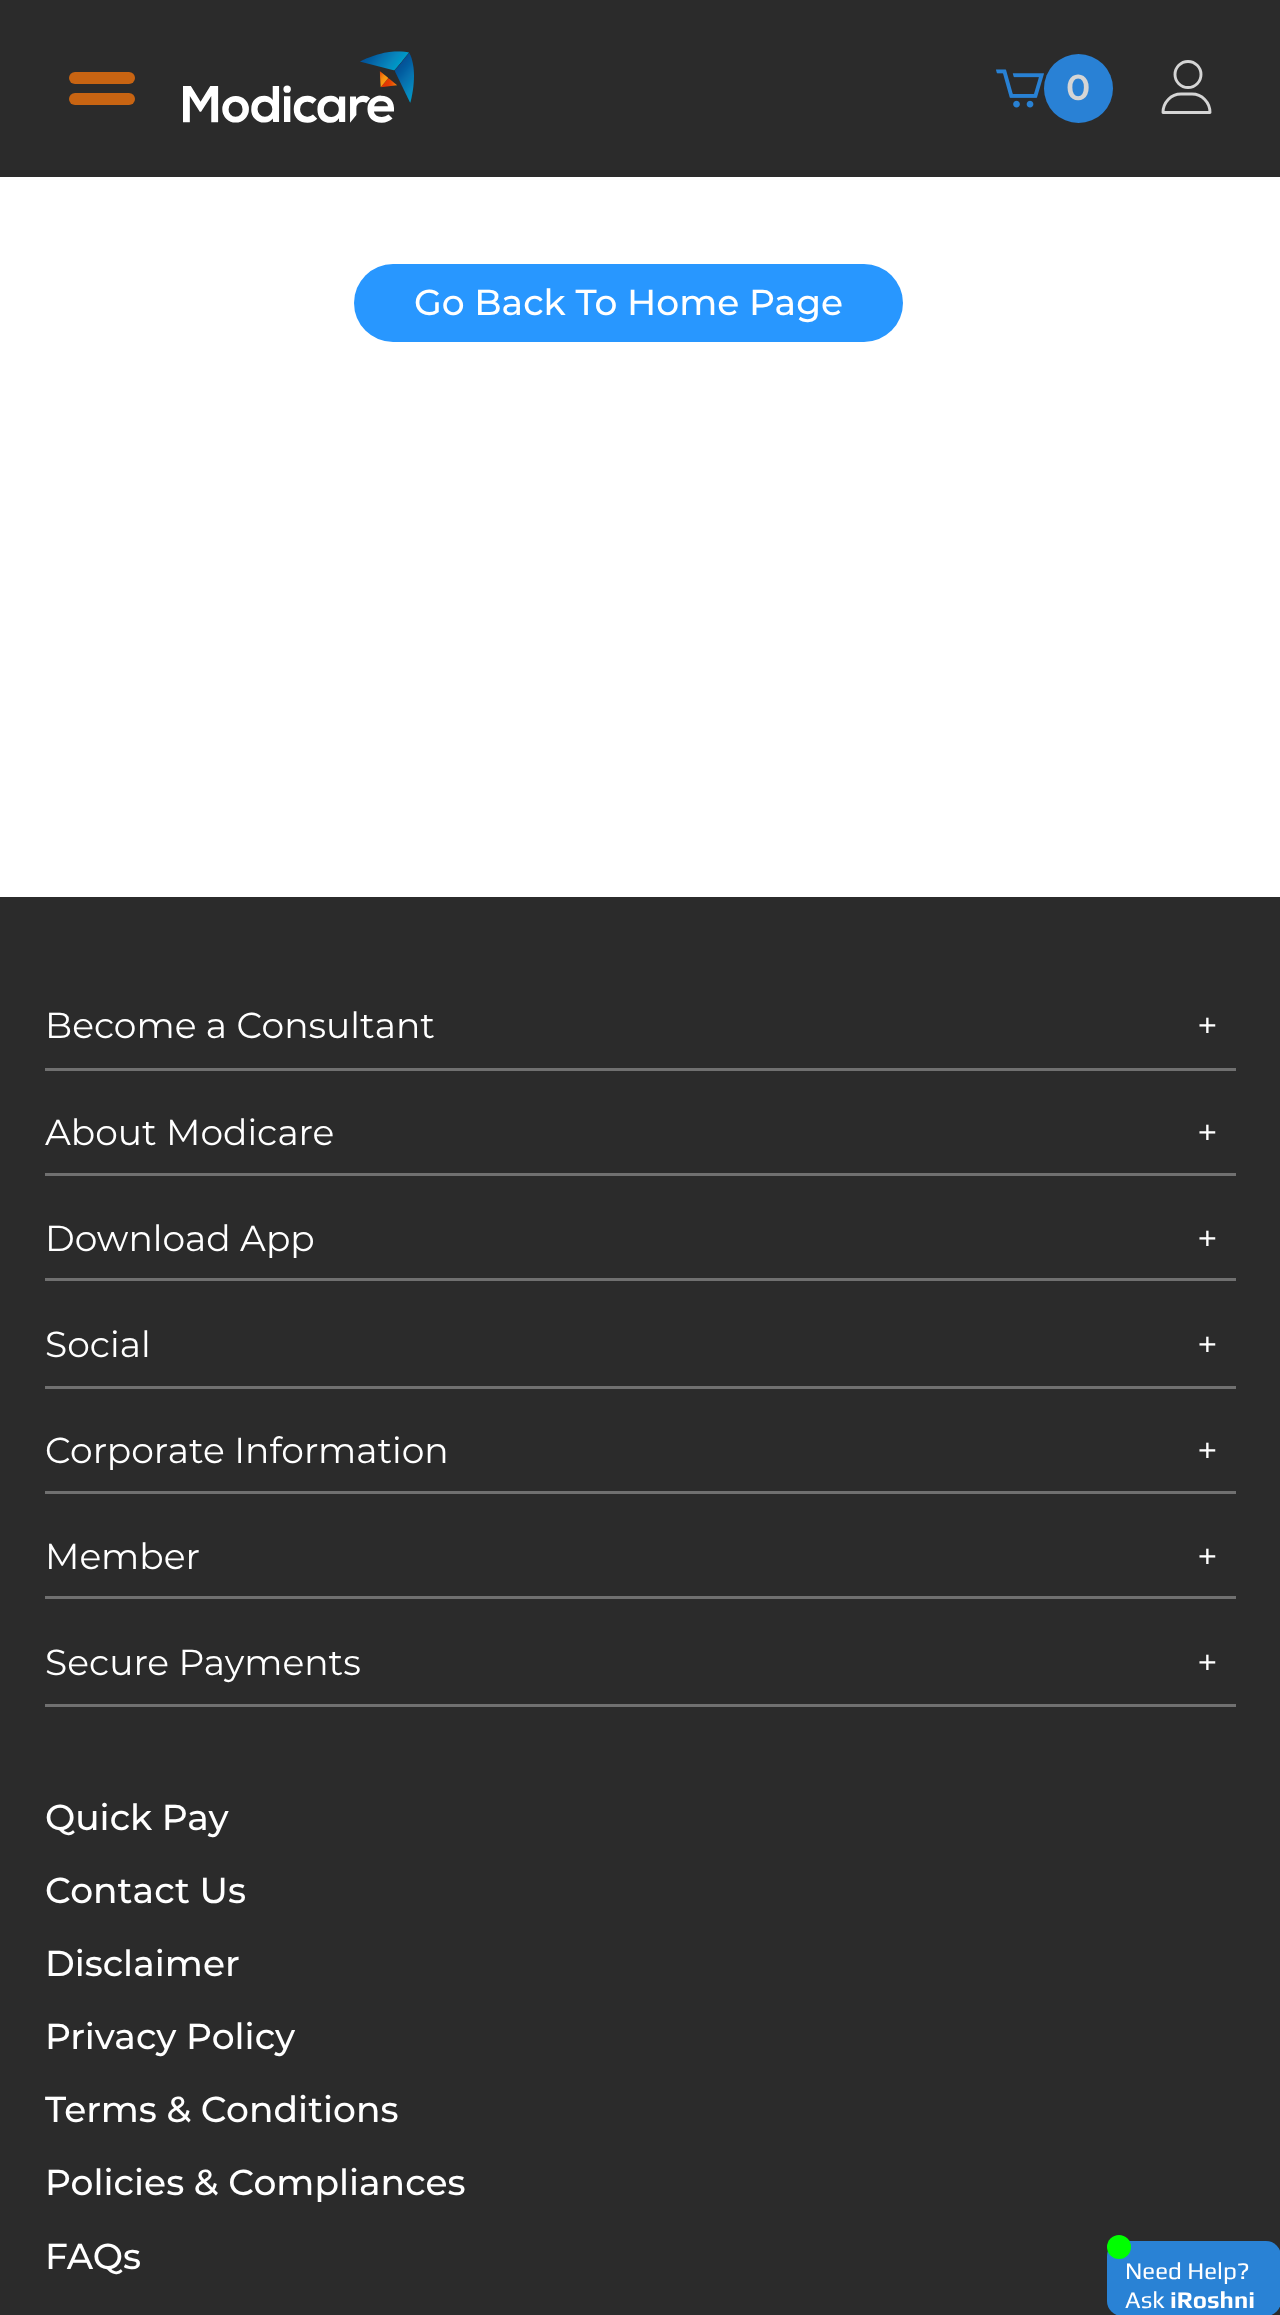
async function draw(canvas) {
  canvas.width = 1280
  canvas.height = 2315
  const ctx = canvas.getContext('2d')
  ctx.miterLimit = 4
  ctx.fontKerning = 'normal'
  async function loadImage(src) {
    const img = new Image()
    img.src = src
    await img.decode()
    return img
  }

  ctx.fillStyle = '#fff'
  ctx.fillRect(0, 0, 1280, 2315)
  ctx.fillStyle = '#2b2b2b'
  ctx.fillRect(0, 0, 1280, 177)
  ctx.fillStyle = '#c86412'
  ctx.beginPath()
  ctx.roundRect(69, 72, 66, 12, 6)
  ctx.fill()
  ctx.beginPath()
  ctx.roundRect(69, 93, 66, 12, 6)
  ctx.fill()
  ctx.drawImage(await loadImage('image0.png'), 183, 51, 231, 72)
  ctx.drawImage(await loadImage('image1.png'), 996, 69, 48, 39)
  ctx.fillStyle = '#2981d5'
  ctx.beginPath()
  ctx.arc(1078.5, 88.5, 34.5, 0, 2 * Math.PI)
  ctx.fill()
  ctx.font = '600 36px Montserrat'
  ctx.fillStyle = '#d5d5d5'
  ctx.fillText('0', 1066, 100)
  ctx.beginPath()
  ctx.arc(1188, 74.5, 13, 0, 2 * Math.PI)
  ctx.strokeStyle = '#d5d5d5'
  ctx.lineWidth = 2.9
  ctx.stroke()
  ctx.beginPath()
  ctx.moveTo(1210, 112.5)
  ctx.lineTo(1163, 112.5)
  ctx.bezierCurveTo(1163, 102.5, 1171, 94, 1181, 94)
  ctx.lineTo(1192, 94)
  ctx.bezierCurveTo(1202, 94, 1210, 102.5, 1210, 112.5)
  ctx.closePath()
  ctx.lineCap = 'round'
  ctx.lineJoin = 'round'
  ctx.stroke()
  ctx.fillStyle = '#2897ff'
  ctx.beginPath()
  ctx.roundRect(354, 264, 549, 78, 39)
  ctx.fill()
  ctx.font = '500 36px Montserrat'
  ctx.fillStyle = '#fff'
  ctx.fillText('Go Back To Home Page', 414, 315)
  ctx.fillStyle = '#2b2b2b'
  ctx.fillRect(0, 897, 1280, 1418)
  ctx.fillStyle = '#707070'
  ctx.fillRect(45, 1068, 1191, 3)
  ctx.font = '36px Montserrat'
  ctx.fillStyle = '#fff'
  ctx.fillText('Become a Consultant', 45, 1038)
  ctx.fillText('+', 1197, 1038)
  ctx.fillStyle = '#707070'
  ctx.fillRect(45, 1173, 1191, 3)
  ctx.fillStyle = '#fff'
  ctx.fillText('About Modicare', 45, 1145)
  ctx.fillText('+', 1197, 1145)
  ctx.fillStyle = '#707070'
  ctx.fillRect(45, 1278, 1191, 3)
  ctx.fillStyle = '#fff'
  ctx.fillText('Download App', 45, 1251)
  ctx.fillText('+', 1197, 1251)
  ctx.fillStyle = '#707070'
  ctx.fillRect(45, 1386, 1191, 3)
  ctx.fillStyle = '#fff'
  ctx.fillText('Social', 45, 1357)
  ctx.fillText('+', 1197, 1357)
  ctx.fillStyle = '#707070'
  ctx.fillRect(45, 1491, 1191, 3)
  ctx.fillStyle = '#fff'
  ctx.fillText('Corporate Information', 45, 1463)
  ctx.fillText('+', 1197, 1463)
  ctx.fillStyle = '#707070'
  ctx.fillRect(45, 1596, 1191, 3)
  ctx.fillStyle = '#fff'
  ctx.fillText('Member', 45, 1569)
  ctx.fillText('+', 1197, 1569)
  ctx.fillStyle = '#707070'
  ctx.fillRect(45, 1704, 1191, 3)
  ctx.fillStyle = '#fff'
  ctx.fillText('Secure Payments', 45, 1675)
  ctx.fillText('+', 1197, 1675)
  ctx.font = '500 36px Montserrat'
  ctx.fillText('Quick Pay', 45, 1830)
  ctx.fillText('Contact Us', 45, 1903)
  ctx.fillText('Disclaimer', 45, 1976)
  ctx.fillText('Privacy Policy', 45, 2049)
  ctx.fillText('Terms & Conditions', 45, 2122)
  ctx.fillText('Policies & Compliances', 45, 2195)
  ctx.fillText('FAQs', 45, 2269)
  ctx.fillStyle = '#2982d5'
  ctx.beginPath()
  ctx.roundRect(1107, 2241, 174, 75, 15)
  ctx.fill()
  ctx.fillStyle = '#0f0'
  ctx.beginPath()
  ctx.arc(1119, 2247, 12, 0, 2 * Math.PI)
  ctx.fill()
  ctx.font = '24px Play'
  ctx.fillStyle = '#fff'
  ctx.fillText('Need Help?', 1125, 2279)
  ctx.fillText('Ask', 1125, 2308)
  ctx.font = 'bold 24px Play'
  ctx.fillText('iRoshni', 1170, 2308)
}

draw(document.querySelector('canvas'))
